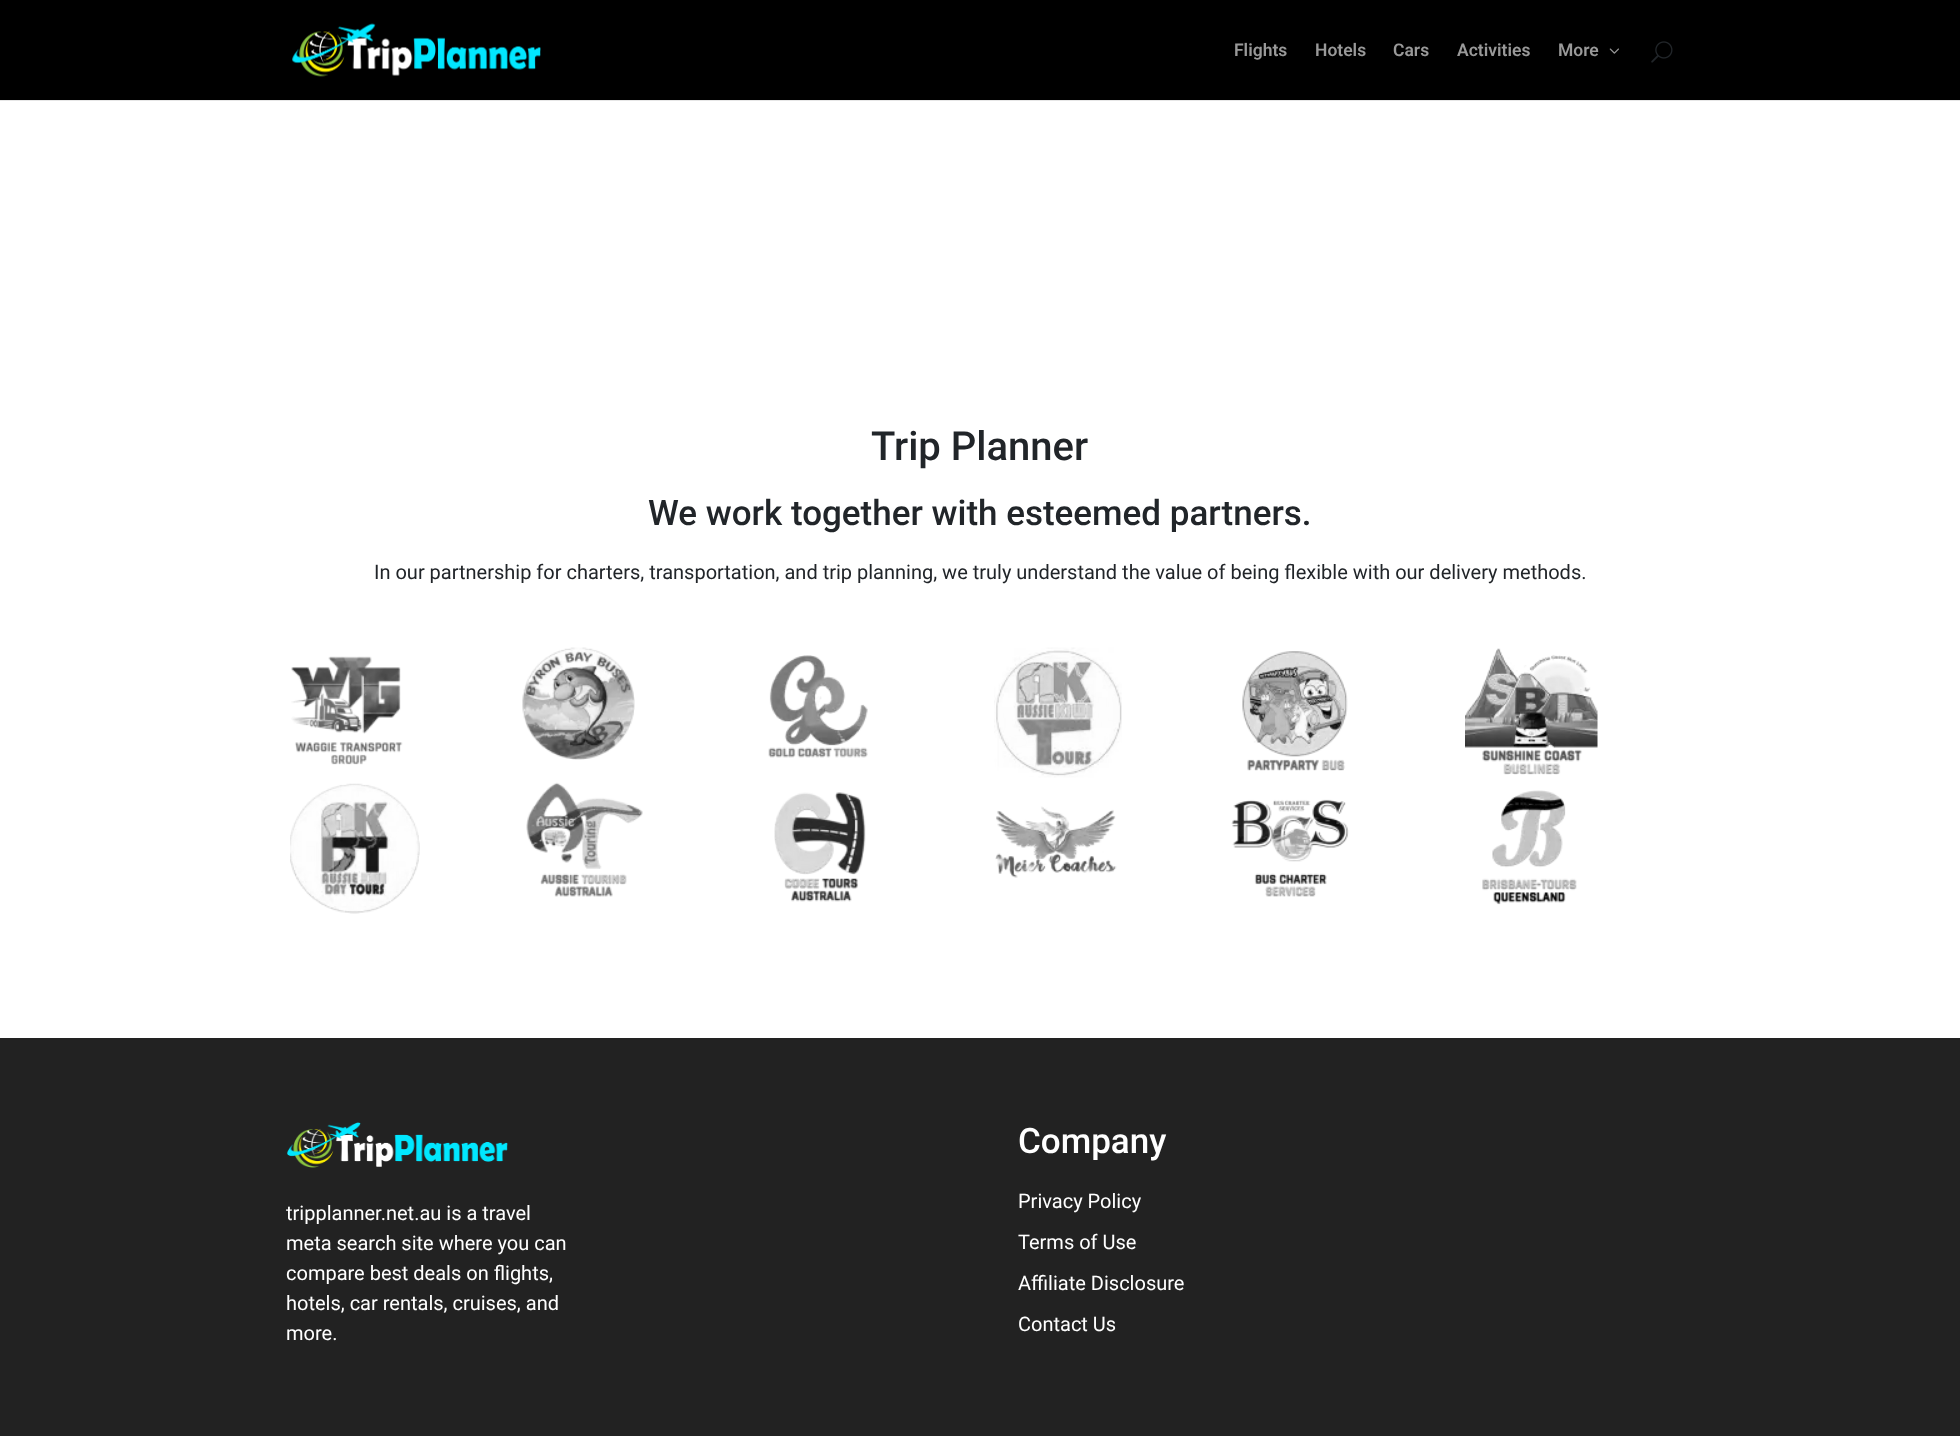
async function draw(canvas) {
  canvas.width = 1960
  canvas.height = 1436
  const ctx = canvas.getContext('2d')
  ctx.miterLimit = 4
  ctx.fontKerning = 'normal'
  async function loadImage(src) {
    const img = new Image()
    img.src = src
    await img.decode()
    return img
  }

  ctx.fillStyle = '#fff'
  ctx.fillRect(0, 0, 1960, 1436)
  ctx.fillStyle = '#e6e6e6'
  ctx.fillRect(0, 100, 1960, 1)
  ctx.fillStyle = '#000'
  ctx.fillRect(0, 0, 1960, 100)
  ctx.drawImage(await loadImage('image0.png'), 292, 23, 249, 54)
  ctx.font = '600 17.5px Roboto'
  ctx.fillStyle = '#999'
  ctx.fillText('Flights', 1234, 56)
  ctx.fillText('Hotels', 1315, 56)
  ctx.fillText('Cars', 1393, 56)
  ctx.fillText('Activities', 1457, 56)
  ctx.fillText('More', 1558, 56)
  ctx.drawImage(await loadImage('image1.png'), 1609, 48, 10, 6)
  ctx.drawImage(await loadImage('image2.png'), 1651, 41, 22, 22)
  ctx.font = '500 40px Roboto'
  ctx.fillStyle = '#212529'
  ctx.fillText('Trip Planner', 871, 460)
  ctx.font = '500 35px Roboto'
  ctx.fillText('We work together with esteemed partners.', 648, 525)
  ctx.font = '20px Roboto'
  ctx.fillText('In our partnership for charters, transportation, and trip planning, we truly understand the value of being flexible with our delivery methods.', 374, 579)
  ctx.drawImage(await loadImage('image3.png'), 291, 656, 112, 109)
  ctx.drawImage(await loadImage('image4.png'), 522, 647, 113, 113)
  ctx.drawImage(await loadImage('image5.png'), 768, 655, 100, 103)
  ctx.drawImage(await loadImage('image6.png'), 994, 647, 128, 131)
  ctx.drawImage(await loadImage('image7.png'), 1242, 651, 106, 120)
  ctx.drawImage(await loadImage('image8.png'), 1465, 648, 133, 127)
  ctx.drawImage(await loadImage('image9.png'), 290, 783, 130, 131)
  ctx.drawImage(await loadImage('image10.png'), 526, 782, 117, 115)
  ctx.drawImage(await loadImage('image11.png'), 774, 792, 92, 110)
  ctx.drawImage(await loadImage('image12.png'), 995, 806, 122, 72)
  ctx.drawImage(await loadImage('image13.png'), 1231, 799, 118, 98)
  ctx.drawImage(await loadImage('image14.png'), 1482, 790, 95, 115)
  ctx.fillStyle = '#222'
  ctx.fillRect(0, 1038, 1960, 398)
  ctx.drawImage(await loadImage('image15.png'), 287, 1122, 221, 46)
  ctx.fillStyle = '#fff'
  ctx.fillText('tripplanner.net.au is a travel', 286, 1220)
  ctx.fillText('meta search site where you can', 286, 1250)
  ctx.fillText('compare best deals on flights,', 286, 1280)
  ctx.fillText('hotels, car rentals, cruises, and', 286, 1310)
  ctx.fillText('more.', 286, 1340)
  ctx.font = '500 35px Roboto'
  ctx.fillText('Company', 1018, 1153)
  ctx.font = '20px Roboto'
  ctx.fillText('Privacy Policy', 1018, 1208)
  ctx.fillText('Terms of Use', 1018, 1249)
  ctx.fillText('Affiliate Disclosure', 1018, 1290)
  ctx.fillText('Contact Us', 1018, 1331)
}

draw(document.querySelector('canvas'))
